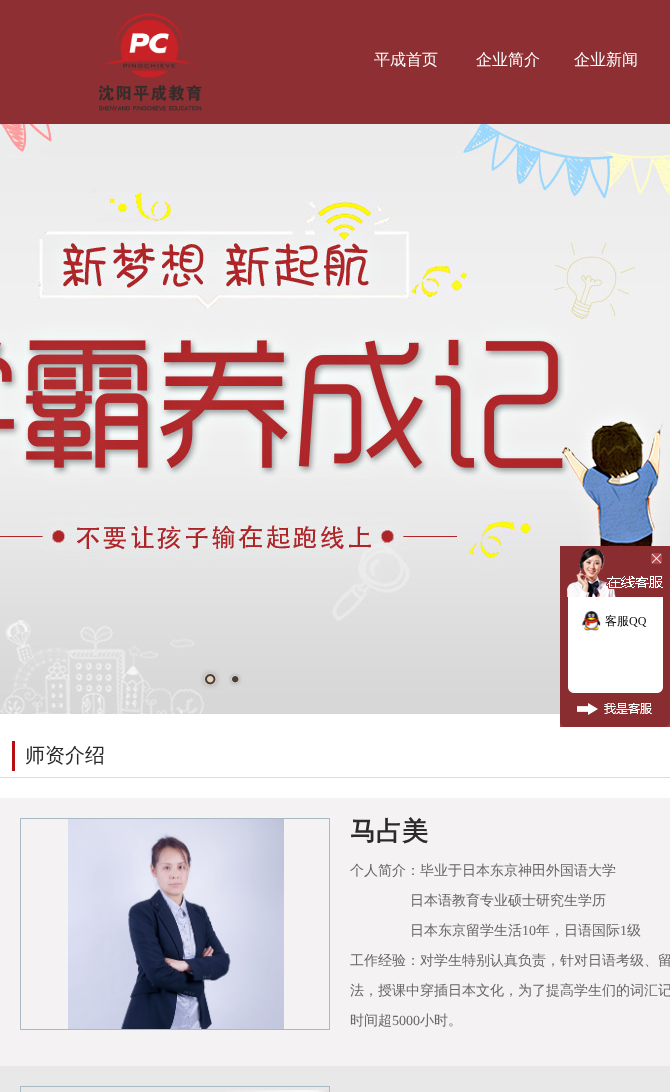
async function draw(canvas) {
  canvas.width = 670
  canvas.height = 1092
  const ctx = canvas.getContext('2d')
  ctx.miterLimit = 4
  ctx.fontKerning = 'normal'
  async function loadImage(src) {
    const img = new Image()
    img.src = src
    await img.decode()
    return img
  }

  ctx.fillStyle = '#fff'
  ctx.fillRect(0, 0, 670, 1092)
  ctx.fillStyle = '#8e3033'
  ctx.fillRect(0, 0, 670, 124)
  ctx.drawImage(await loadImage('image0.png'), 98, 13, 104, 98)
  ctx.font = '500 16px WenQuanYi Zen Hei'
  ctx.fillStyle = '#fff'
  ctx.fillText('平成首页', 374, 65)
  ctx.fillText('企业简介', 476, 65)
  ctx.fillText('企业新闻', 574, 65)
  ctx.drawImage(await loadImage('image1.png'), 0, 124, 670, 590)
  ctx.drawImage(await loadImage('image2.png'), 560, 546, 110, 181)
  ctx.drawImage(await loadImage('image3.png'), 567, 546, 97, 51)
  ctx.drawImage(await loadImage('image4.png'), 582, 611, 19, 20)
  ctx.font = '500 12px WenQuanYi Zen Hei'
  ctx.fillStyle = '#000'
  ctx.fillText('客服', 605, 625)
  ctx.font = '12px Liberation Serif'
  ctx.fillText('QQ', 629, 625)
  ctx.drawImage(await loadImage('image5.png'), 560, 687, 110, 40)
  ctx.fillStyle = '#b80e12'
  ctx.fillRect(12, 741, 3, 30)
  ctx.fillStyle = '#ddd'
  ctx.fillRect(0, 777, 670, 1)
  ctx.font = '500 20px WenQuanYi Zen Hei'
  ctx.fillStyle = '#2b2b2b'
  ctx.fillText('师资介绍', 25, 762)
  ctx.fillStyle = '#f4f2f2'
  ctx.fillRect(0, 798, 670, 268)
  ctx.strokeStyle = '#a9bac4'
  ctx.strokeRect(20.5, 818.5, 309, 211)
  ctx.drawImage(await loadImage('image6.png'), 68, 819, 216, 210)
  ctx.font = 'bold 26px WenQuanYi Zen Hei'
  ctx.fillStyle = '#2b2b2b'
  ctx.fillText('马占美', 350, 840)
  ctx.font = '500 14px WenQuanYi Zen Hei'
  ctx.fillStyle = '#666'
  ctx.fillText('个人简介：毕业于日本东京神田外国语大学', 350, 875)
  ctx.fillText('日本语教育专业硕士研究生学历', 410, 905)
  ctx.fillText('日本东京留学生活', 410, 935)
  ctx.font = '14px Liberation Serif'
  ctx.fillText('10', 522, 935)
  ctx.font = '500 14px WenQuanYi Zen Hei'
  ctx.fillText('年，日语国际', 536, 935)
  ctx.font = '14px Liberation Serif'
  ctx.fillText('1', 620, 935)
  ctx.font = '500 14px WenQuanYi Zen Hei'
  ctx.fillText('级', 627, 935)
  ctx.fillText('工作经验：对学生特别认真负责，针对日语考级、留', 350, 965)
  ctx.fillText('法，授课中穿插日本文化，为了提高学生们的词汇记', 350, 995)
  ctx.fillText('时间超', 350, 1025)
  ctx.font = '14px Liberation Serif'
  ctx.fillText('5000', 392, 1025)
  ctx.font = '500 14px WenQuanYi Zen Hei'
  ctx.fillText('小时。', 420, 1025)
  ctx.fillStyle = '#e8e8e8'
  ctx.fillRect(0, 1066, 670, 26)
  ctx.strokeRect(20.5, 1086.5, 309, 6)
  ctx.drawImage(await loadImage('image7.png'), 226, 1090, 103, 2)
}

draw(document.querySelector('canvas'))
